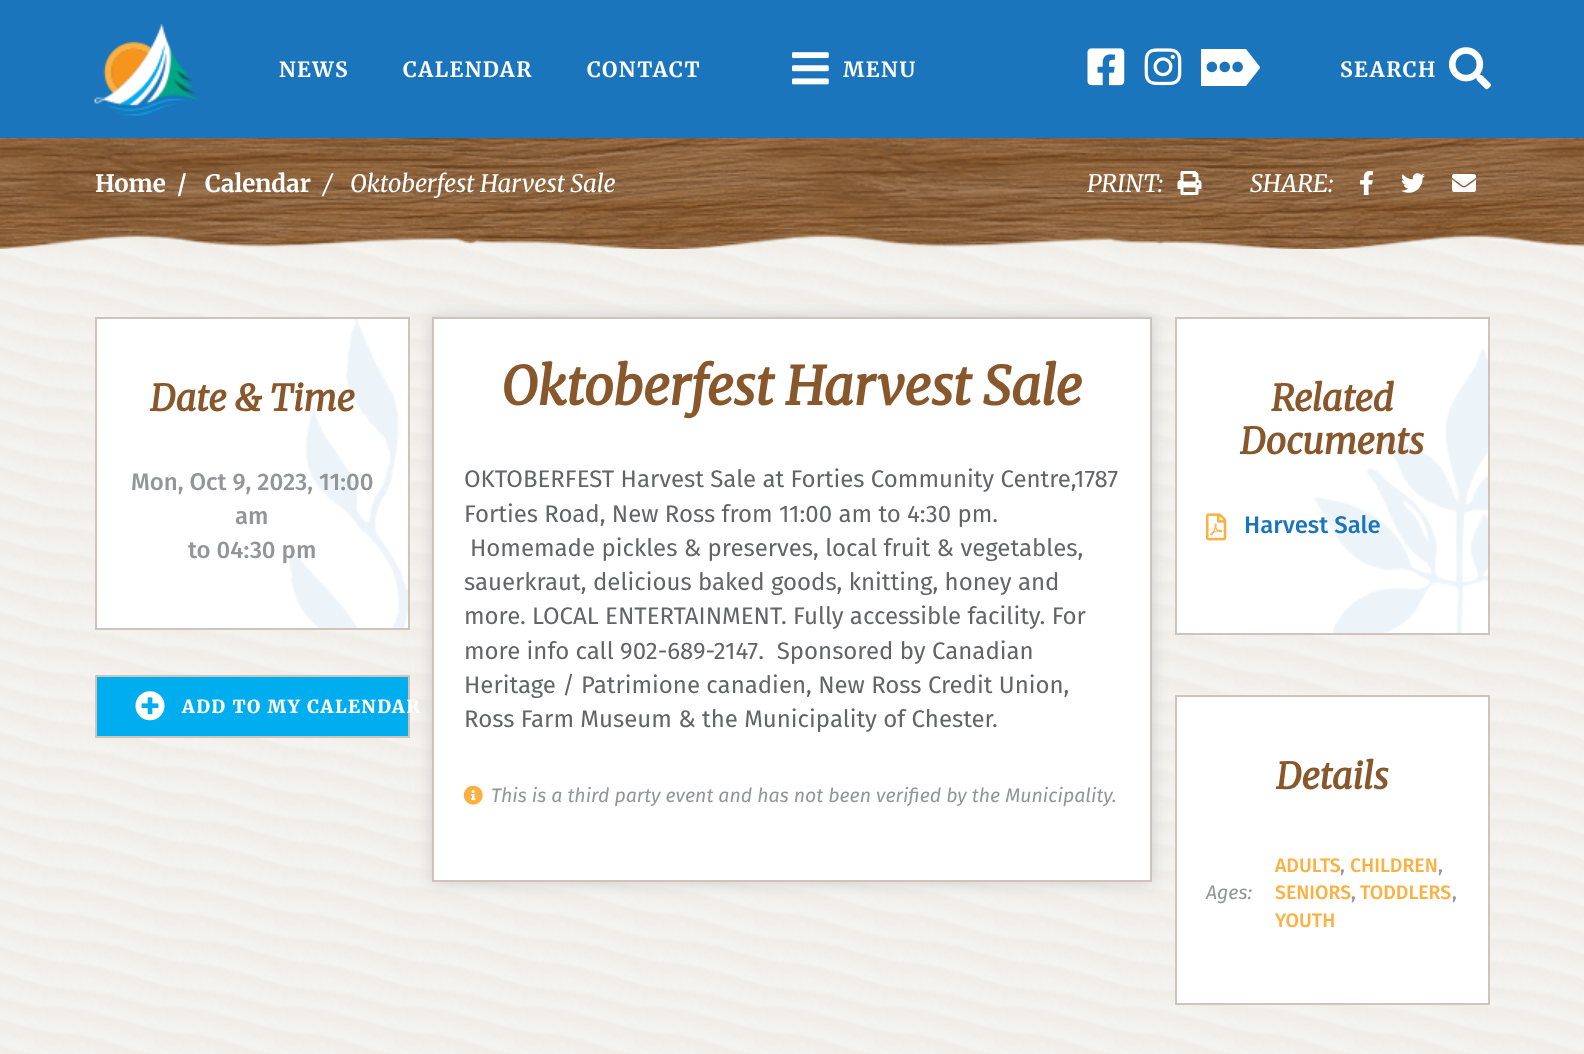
async function draw(canvas) {
  canvas.width = 1584
  canvas.height = 1054
  const ctx = canvas.getContext('2d')
  ctx.miterLimit = 4
  ctx.fontKerning = 'normal'
  async function loadImage(src) {
    const img = new Image()
    img.src = src
    await img.decode()
    return img
  }

  ctx.fillStyle = '#fff'
  ctx.fillRect(0, 0, 1584, 1054)
  ctx.drawImage(await loadImage('image0.png'), 0, 234, 1584, 820)
  ctx.fillStyle = '#1b75bc'
  ctx.fillRect(0, 0, 1584, 138)
  ctx.drawImage(await loadImage('image1.png'), 94, 24, 105, 92)
  ctx.letterSpacing = '1.5px'
  ctx.font = 'bold 21px Merriweather'
  ctx.fillStyle = '#fff'
  ctx.fillText('NEWS', 279, 77)
  ctx.fillText('CALENDAR', 403, 77)
  ctx.fillText('CONTACT', 587, 77)
  ctx.drawImage(await loadImage('image2.png'), 792, 52, 37, 33)
  ctx.fillText('MENU', 843, 77)
  ctx.drawImage(await loadImage('image3.png'), 1087, 48, 38, 38)
  ctx.drawImage(await loadImage('image4.png'), 1144, 48, 38, 38)
  ctx.beginPath()
  ctx.moveTo(1201, 49)
  ctx.lineTo(1246, 49)
  ctx.lineTo(1260, 67)
  ctx.lineTo(1260, 68)
  ctx.lineTo(1246, 86)
  ctx.lineTo(1201, 86)
  ctx.closePath()
  ctx.fill()
  ctx.drawImage(await loadImage('image5.png'), 1206, 61, 37, 12)
  ctx.fillText('SEARCH', 1340, 77)
  ctx.drawImage(await loadImage('image6.png'), 1449, 47, 42, 43)
  ctx.drawImage(await loadImage('image7.png'), 0, 138, 1584, 111)
  ctx.letterSpacing = '0px'
  ctx.font = 'bold 24px Merriweather'
  ctx.fillText('Home', 95, 192)
  ctx.fillText('/', 177, 192)
  ctx.fillText('Calendar', 205, 192)
  ctx.font = 'italic 300 24px Merriweather'
  ctx.fillText('/', 323, 192)
  ctx.fillText('Oktoberfest Harvest Sale', 350, 192)
  ctx.fillText('PRINT:', 1087, 192)
  ctx.drawImage(await loadImage('image8.png'), 1177, 171, 25, 24)
  ctx.fillText('SHARE:', 1250, 192)
  ctx.drawImage(await loadImage('image9.png'), 1360, 171, 13, 24)
  ctx.drawImage(await loadImage('image10.png'), 1401, 173, 24, 20)
  ctx.drawImage(await loadImage('image11.png'), 1452, 174, 24, 18)
  ctx.fillRect(97, 319, 311, 309)
  ctx.drawImage(await loadImage('image12.png'), 289, 319, 119, 309)
  ctx.strokeStyle = '#cec4bb'
  ctx.lineWidth = 2
  ctx.strokeRect(96, 318, 313, 311)
  ctx.font = 'italic bold 36px Merriweather'
  ctx.fillStyle = '#88572c'
  ctx.fillText('Date & Time', 150, 411)
  ctx.font = '500 24px Fira Sans'
  ctx.fillStyle = '#939598'
  ctx.fillText('Mon, Oct 9, 2023, 11:00', 131, 490)
  ctx.fillText('am', 235, 524)
  ctx.fillText('to 04:30 pm', 188, 558)
  ctx.fillStyle = '#00aeef'
  ctx.beginPath()
  ctx.rect(96, 676, 313, 61)
  ctx.fill()
  ctx.stroke()
  ctx.drawImage(await loadImage('image13.png'), 135, 691, 30, 30)
  ctx.letterSpacing = '1.5px'
  ctx.font = '900 18px Merriweather'
  ctx.fillStyle = '#fff'
  ctx.fillText('ADD TO MY CALENDAR', 182, 713)
  ctx.fillStyle = '#ccc'
  ctx.filter = 'blur(7.5px)'
  ctx.beginPath()
  ctx.rect(432, 317, 720, 565)
  ctx.fill()
  ctx.filter = 'none'
  ctx.fillStyle = '#fff'
  ctx.beginPath()
  ctx.rect(433, 318, 718, 563)
  ctx.fill()
  ctx.stroke()
  ctx.letterSpacing = '0px'
  ctx.font = 'italic bold 52.5px Merriweather'
  ctx.fillStyle = '#88572c'
  ctx.fillText('Oktoberfest Harvest Sale', 501, 405)
  ctx.font = '24px Fira Sans'
  ctx.fillStyle = '#636466'
  ctx.fillText('OKTOBERFEST Harvest Sale at Forties Community Centre,1787', 464, 487)
  ctx.fillText('Forties Road, New Ross from 11:00 am to 4:30 pm.', 464, 522)
  ctx.fillText('Homemade pickles & preserves, local fruit & vegetables,', 470, 556)
  ctx.fillText('sauerkraut, delicious baked goods, knitting, honey and', 464, 590)
  ctx.fillText('more. LOCAL ENTERTAINMENT. Fully accessible facility. For', 464, 624)
  ctx.fillText('more info call 902-689-2147.  Sponsored by Canadian', 464, 659)
  ctx.fillText('Heritage / Patrimione canadien, New Ross Credit Union,', 464, 693)
  ctx.fillText('Ross Farm Museum & the Municipality of Chester.', 464, 727)
  ctx.drawImage(await loadImage('image14.png'), 463, 785, 20, 20)
  ctx.font = 'italic 19.5px Fira Sans'
  ctx.fillStyle = '#939598'
  ctx.fillText('This is a third party event and has not been verified by the Municipality.', 491, 802)
  ctx.fillStyle = '#fff'
  ctx.fillRect(1177, 319, 311, 314)
  ctx.drawImage(await loadImage('image15.png'), 1314, 349, 174, 284)
  ctx.strokeRect(1176, 318, 313, 316)
  ctx.font = 'italic bold 36px Merriweather'
  ctx.fillStyle = '#88572c'
  ctx.fillText('Related', 1271, 411)
  ctx.fillText('Documents', 1240, 454)
  ctx.drawImage(await loadImage('image16.png'), 1206, 513, 21, 28)
  ctx.font = '500 24px Fira Sans'
  ctx.fillStyle = '#1b75bc'
  ctx.fillText('Harvest Sale', 1244, 533)
  ctx.fillStyle = '#fff'
  ctx.beginPath()
  ctx.rect(1176, 696, 313, 308)
  ctx.fill()
  ctx.stroke()
  ctx.font = 'italic bold 36px Merriweather'
  ctx.fillStyle = '#88572c'
  ctx.fillText('Details', 1276, 789)
  ctx.font = 'italic 19.5px Fira Sans'
  ctx.fillStyle = '#939598'
  ctx.fillText('Ages:', 1206, 899)
  ctx.font = '500 19.5px Fira Sans'
  ctx.fillStyle = '#fcb040'
  ctx.fillText('ADULTS', 1275, 872)
  ctx.fillStyle = '#939598'
  ctx.fillText(',', 1340, 872)
  ctx.fillStyle = '#fcb040'
  ctx.fillText('CHILDREN', 1350, 872)
  ctx.fillStyle = '#939598'
  ctx.fillText(',', 1438, 872)
  ctx.fillStyle = '#fcb040'
  ctx.fillText('SENIORS', 1275, 899)
  ctx.fillStyle = '#939598'
  ctx.fillText(',', 1351, 899)
  ctx.fillStyle = '#fcb040'
  ctx.fillText('TODDLERS', 1360, 899)
  ctx.fillStyle = '#939598'
  ctx.fillText(',', 1452, 899)
  ctx.fillStyle = '#fcb040'
  ctx.fillText('YOUTH', 1275, 927)
}

draw(document.querySelector('canvas'))
